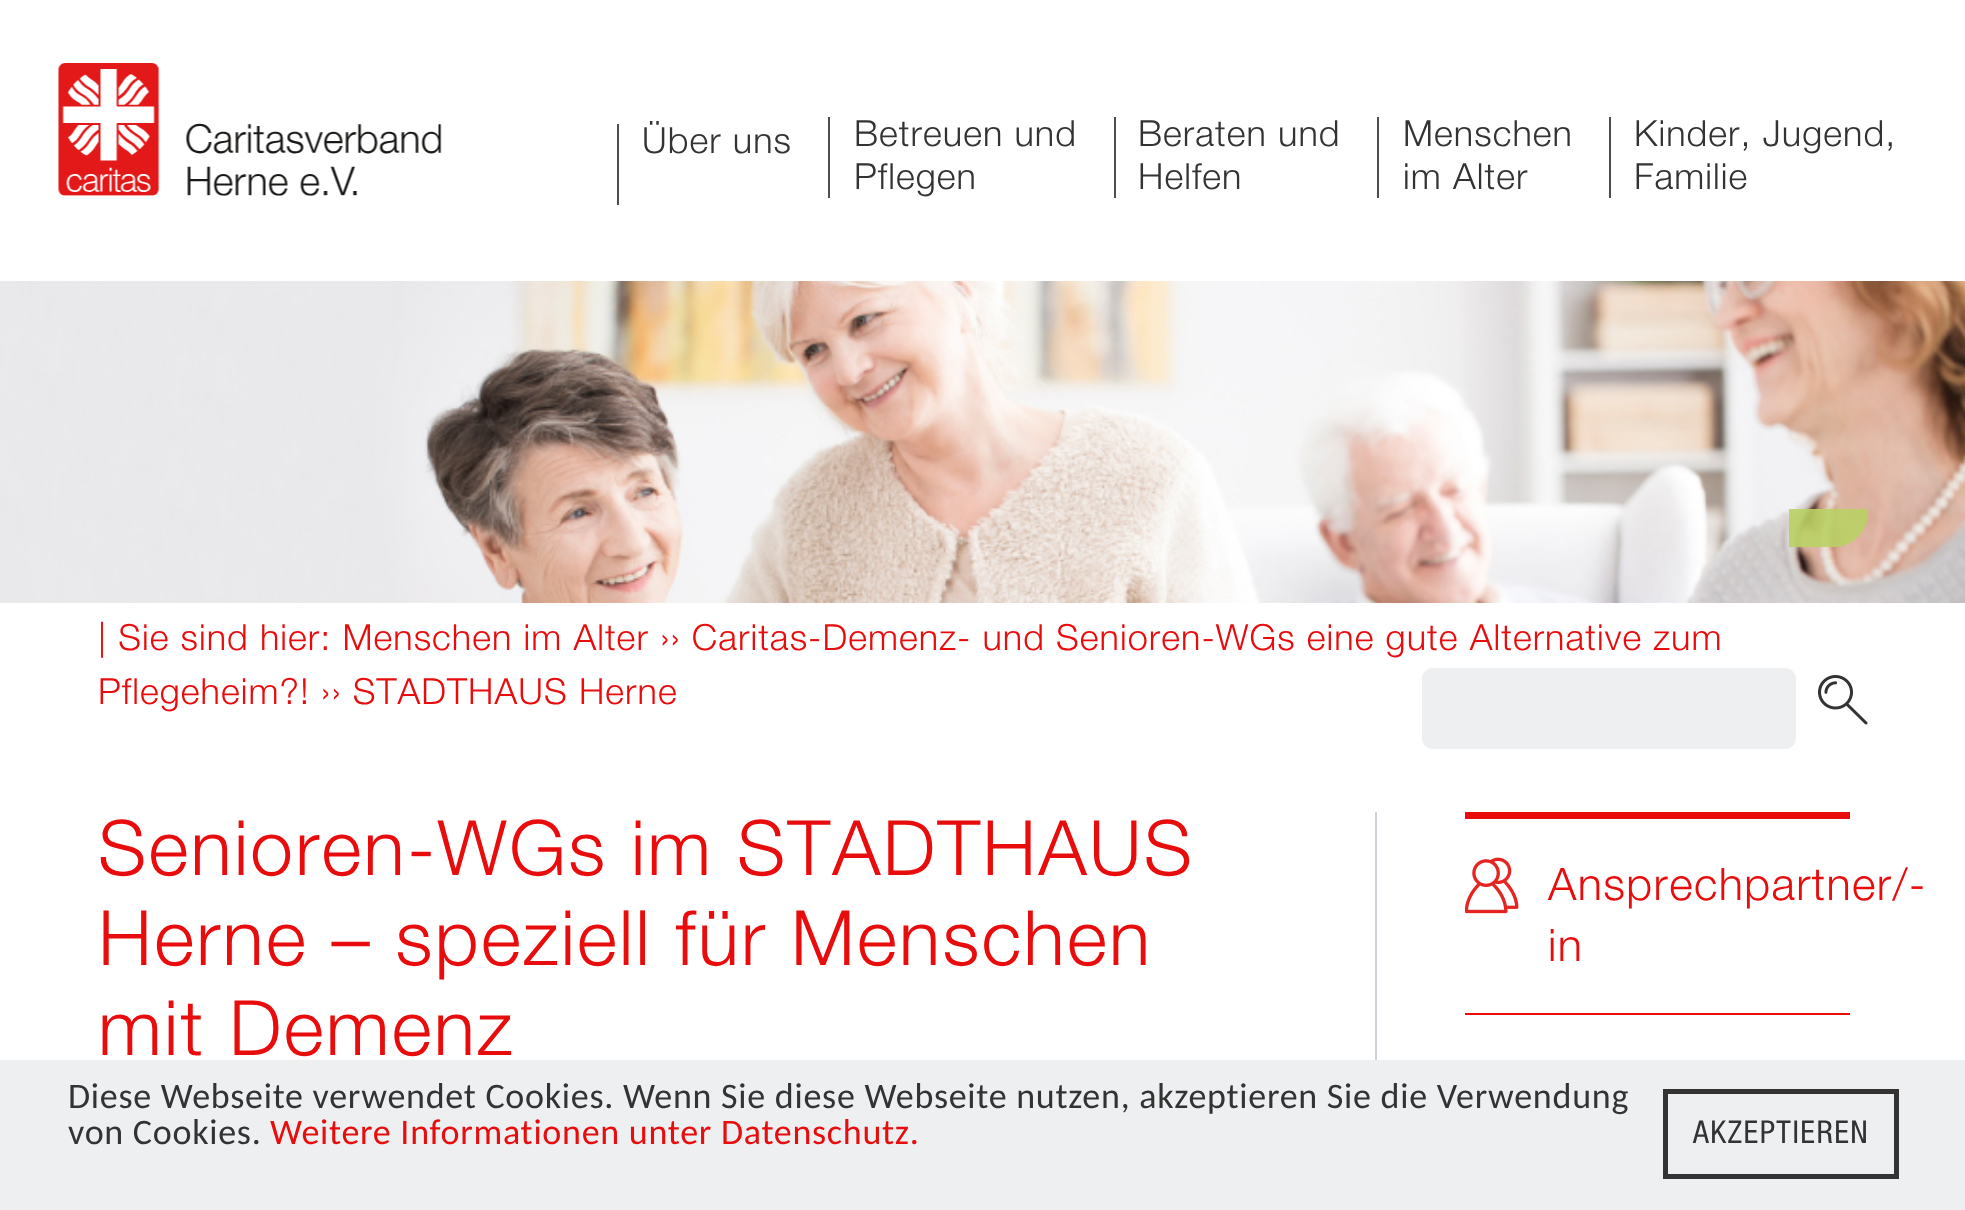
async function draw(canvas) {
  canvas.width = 1965
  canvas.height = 1210
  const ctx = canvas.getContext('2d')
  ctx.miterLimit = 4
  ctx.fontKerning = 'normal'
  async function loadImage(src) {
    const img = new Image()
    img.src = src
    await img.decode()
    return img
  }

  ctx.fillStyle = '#fff'
  ctx.fillRect(0, 0, 1965, 1210)
  ctx.drawImage(await loadImage('image0.png'), 58, 63, 384, 133)
  ctx.fillStyle = '#4d4d4d'
  ctx.fillRect(617, 124, 2, 81)
  ctx.letterSpacing = '1.08px'
  ctx.font = '300 36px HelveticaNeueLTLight'
  ctx.fillStyle = '#333'
  ctx.fillText('Über uns', 642, 153)
  ctx.fillStyle = '#4d4d4d'
  ctx.fillRect(828, 117, 2, 81)
  ctx.fillStyle = '#333'
  ctx.fillText('Betreuen und', 854, 146)
  ctx.fillText('Pflegen', 854, 189)
  ctx.fillStyle = '#4d4d4d'
  ctx.fillRect(1114, 117, 2, 81)
  ctx.fillStyle = '#333'
  ctx.fillText('Beraten und', 1138, 146)
  ctx.fillText('Helfen', 1138, 189)
  ctx.fillStyle = '#4d4d4d'
  ctx.fillRect(1377, 117, 2, 81)
  ctx.fillStyle = '#333'
  ctx.fillText('Menschen', 1403, 146)
  ctx.fillText('im Alter', 1403, 189)
  ctx.fillStyle = '#4d4d4d'
  ctx.fillRect(1609, 117, 2, 81)
  ctx.fillStyle = '#333'
  ctx.fillText('Kinder, Jugend,', 1634, 146)
  ctx.fillText('Familie', 1634, 189)
  ctx.drawImage(await loadImage('image1.png'), 0, 281, 1965, 322)
  ctx.fillStyle = '#b9d065e6'
  ctx.beginPath()
  ctx.roundRect(1789, 509, 79, 38, [0, 0, 34, 0])
  ctx.fill()
  ctx.fillStyle = '#e80c0c'
  ctx.fillText('| Sie sind hier: Menschen im Alter ›› Caritas-Demenz- und Senioren-WGs eine gute Alternative zum', 98, 650)
  ctx.fillText('Pflegeheim?! ›› STADTHAUS Herne', 98, 704)
  ctx.fillStyle = '#edeff1'
  ctx.beginPath()
  ctx.roundRect(1422, 668, 374, 81, 11)
  ctx.fill()
  ctx.drawImage(await loadImage('image2.png'), 1818, 675, 50, 50)
  ctx.fillStyle = '#ccd2d7'
  ctx.fillRect(1375, 812, 2, 248)
  ctx.letterSpacing = '2.3px'
  ctx.font = '300 76.5px HelveticaNeueLTLight'
  ctx.fillStyle = '#e80c0c'
  ctx.fillText('Senioren-WGs im STADTHAUS', 98, 875)
  ctx.fillText('Herne – speziell für Menschen', 98, 965)
  ctx.fillText('mit Demenz', 98, 1055)
  ctx.fillRect(1465, 812, 385, 7)
  ctx.fillRect(1465, 1013, 385, 2)
  ctx.drawImage(await loadImage('image3.png'), 1465, 857, 54, 57)
  ctx.letterSpacing = '1.4px'
  ctx.font = '300 45px HelveticaNeueLTLight'
  ctx.fillText('Ansprechpartner/-', 1548, 900)
  ctx.fillText('in', 1548, 961)
  ctx.fillStyle = '#edeff1'
  ctx.fillRect(0, 1060, 1965, 150)
  ctx.letterSpacing = '0.72px'
  ctx.font = '36px Carlito'
  ctx.fillStyle = '#333'
  ctx.fillText('Diese Webseite verwendet Cookies. Wenn Sie diese Webseite nutzen, akzeptieren Sie die Verwendung', 68, 1108)
  ctx.fillText('von Cookies.', 68, 1144)
  ctx.fillStyle = '#e80c0c'
  ctx.fillText('Weitere Informationen unter Datenschutz.', 270, 1144)
  ctx.strokeStyle = '#333'
  ctx.lineWidth = 5
  ctx.strokeRect(1665.5, 1091.5, 231, 85)
  ctx.letterSpacing = '1.5px'
  ctx.font = '31.5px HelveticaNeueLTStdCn'
  ctx.fillStyle = '#333'
  ctx.fillText('AKZEPTIEREN', 1693, 1143)
}

draw(document.querySelector('canvas'))
